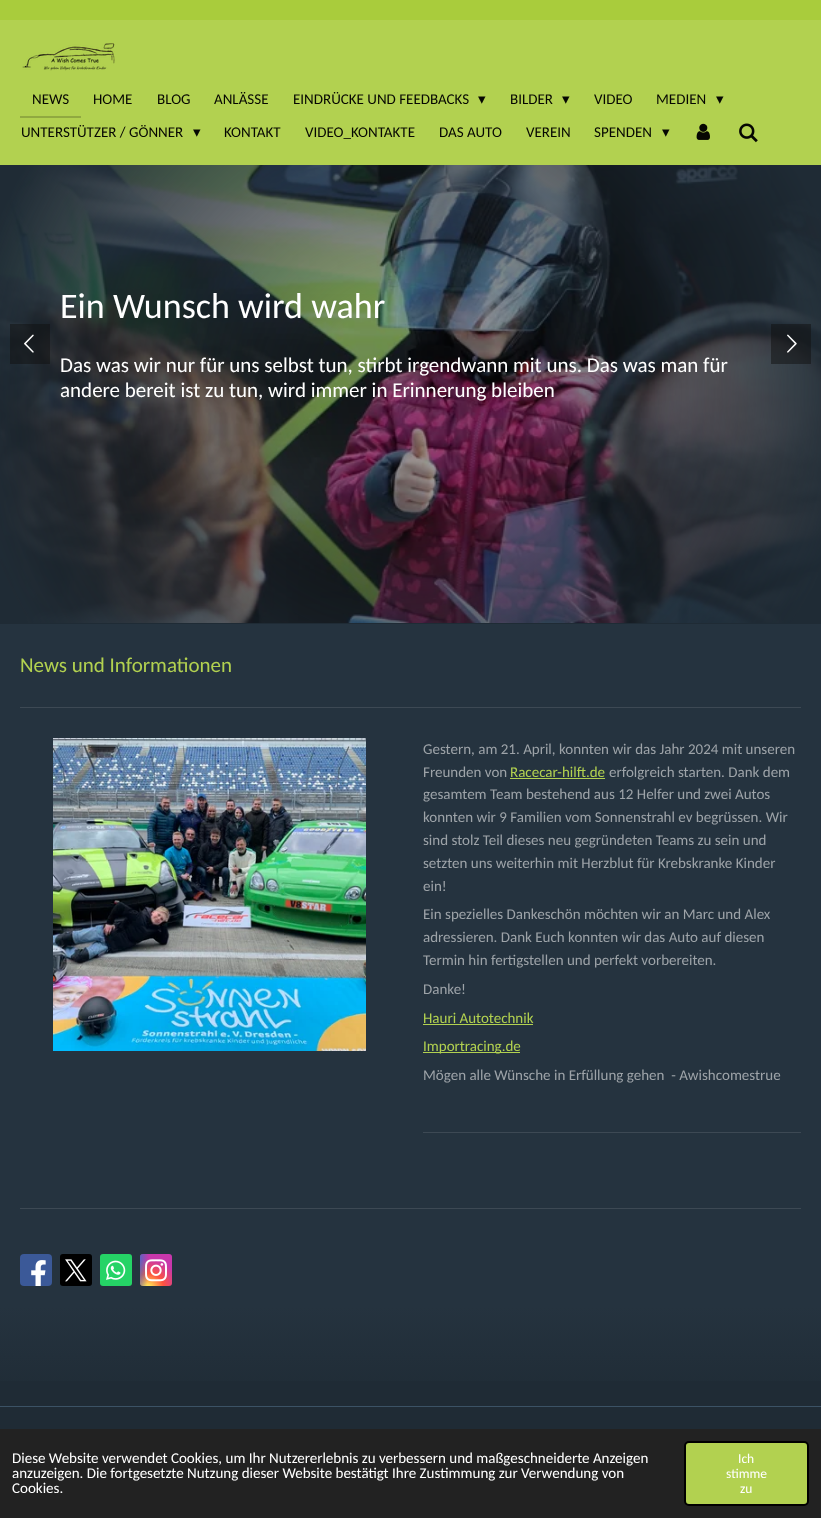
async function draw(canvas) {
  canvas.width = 821
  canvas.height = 1518
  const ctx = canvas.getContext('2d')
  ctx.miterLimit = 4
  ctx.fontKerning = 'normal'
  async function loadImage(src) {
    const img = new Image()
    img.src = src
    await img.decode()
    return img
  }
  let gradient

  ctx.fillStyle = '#1f2b35'
  ctx.fillRect(0, 0, 821, 1518)
  ctx.fillStyle = '#b2d150'
  ctx.fillRect(0, 20, 821, 145)
  ctx.fillStyle = '#a9cc3c'
  ctx.fillRect(0, 0, 821, 20)
  ctx.drawImage(await loadImage('image0.png'), 22, 43, 93, 28)
  ctx.fillStyle = '#90a940'
  ctx.fillRect(20, 116, 61, 2)
  ctx.font = '15px Carlito'
  ctx.fillStyle = '#060702'
  ctx.fillText('NEWS', 32, 104)
  ctx.fillText('HOME', 93, 104)
  ctx.fillText('BLOG', 157, 104)
  ctx.fillText('ANLÄSSE', 214, 104)
  ctx.fillText('EINDRÜCKE UND FEEDBACKS', 293, 104)
  ctx.font = '15px DejaVu Sans'
  ctx.fillText('▾', 478, 104)
  ctx.font = '15px Carlito'
  ctx.fillText('BILDER', 510, 104)
  ctx.font = '15px DejaVu Sans'
  ctx.fillText('▾', 562, 104)
  ctx.font = '15px Carlito'
  ctx.fillText('VIDEO', 594, 104)
  ctx.fillText('MEDIEN', 656, 104)
  ctx.font = '15px DejaVu Sans'
  ctx.fillText('▾', 716, 104)
  ctx.font = '15px Carlito'
  ctx.fillText('UNTERSTÜTZER / GÖNNER', 21, 137)
  ctx.font = '15px DejaVu Sans'
  ctx.fillText('▾', 193, 137)
  ctx.font = '15px Carlito'
  ctx.fillText('KONTAKT', 224, 137)
  ctx.fillText('VIDEO_KONTAKTE', 305, 137)
  ctx.fillText('DAS AUTO', 439, 137)
  ctx.fillText('VEREIN', 526, 137)
  ctx.fillText('SPENDEN', 594, 137)
  ctx.font = '15px DejaVu Sans'
  ctx.fillText('▾', 662, 137)
  ctx.drawImage(await loadImage('image1.png'), 696, 123, 14, 17)
  ctx.drawImage(await loadImage('image2.png'), 739, 123, 19, 20)
  ctx.drawImage(await loadImage('image3.png'), 0, 165, 821, 458)
  ctx.font = '36px Carlito'
  ctx.fillStyle = '#fff'
  ctx.fillText('Ein Wunsch wird wahr', 60, 318)
  ctx.font = '21px Carlito'
  ctx.fillText('Das was wir nur für uns selbst tun, stirbt irgendwann mit uns. Das was man für', 60, 372)
  ctx.fillText('andere bereit ist zu tun, wird immer in Erinnerung bleiben', 60, 397)
  ctx.fillStyle = '#0f0f0f80'
  ctx.fillRect(10, 324, 40, 40)
  ctx.drawImage(await loadImage('image4.png'), 24, 334, 10, 19)
  ctx.fillRect(771, 324, 40, 40)
  ctx.drawImage(await loadImage('image5.png'), 787, 334, 10, 19)
  ctx.fillStyle = '#25333f'
  ctx.fillRect(0, 624, 821, 682)
  ctx.fillStyle = '#b2d150'
  ctx.fillText('News und Informationen', 20, 672)
  ctx.fillStyle = '#3d4954'
  ctx.fillRect(20, 707, 781, 1)
  ctx.drawImage(await loadImage('image6.png'), 53, 738, 313, 313)
  ctx.font = '15px Carlito'
  ctx.fillStyle = '#9da3a8'
  ctx.fillText('Gestern, am 21. April, konnten wir das Jahr 2024 mit unseren', 423, 754)
  ctx.fillText('Freunden von', 423, 777)
  ctx.fillStyle = '#b2d150'
  ctx.fillText('Racecar-hilft.de', 510, 777)
  ctx.fillRect(510, 778, 95, 1)
  ctx.fillStyle = '#9da3a8'
  ctx.fillText('erfolgreich starten. Dank dem', 609, 777)
  ctx.fillText('gesamtem Team bestehend aus 12 Helfer und zwei Autos', 423, 799)
  ctx.fillText('konnten wir 9 Familien vom Sonnenstrahl ev begrüssen. Wir', 423, 822)
  ctx.fillText('sind stolz Teil dieses neu gegründeten Teams zu sein und', 423, 845)
  ctx.fillText('setzten uns weiterhin mit Herzblut für Krebskranke Kinder', 423, 868)
  ctx.fillText('ein!', 423, 891)
  ctx.fillText('Ein spezielles Dankeschön möchten wir an Marc und Alex', 423, 919)
  ctx.fillText('adressieren. Dank Euch konnten wir das Auto auf diesen', 423, 942)
  ctx.fillText('Termin hin fertigstellen und perfekt vorbereiten.', 423, 965)
  ctx.fillText('Danke!', 423, 994)
  ctx.fillStyle = '#b2d150'
  ctx.fillText('Hauri Autotechnik', 423, 1023)
  ctx.fillRect(423, 1024, 110, 1)
  ctx.fillRect(423, 1052, 97, 1)
  ctx.fillText('Importracing.de', 423, 1051)
  ctx.fillStyle = '#9da3a8'
  ctx.fillText('Mögen alle Wünsche in Erfüllung gehen  - Awishcomestrue', 423, 1080)
  ctx.fillStyle = '#3d4954'
  ctx.fillRect(423, 1132, 378, 1)
  ctx.fillRect(20, 1208, 781, 1)
  ctx.fillStyle = '#3b5998'
  ctx.beginPath()
  ctx.roundRect(20, 1254, 32, 32, 4)
  ctx.fill()
  ctx.drawImage(await loadImage('image7.png'), 31, 1260, 15, 26)
  ctx.fillStyle = '#000'
  ctx.beginPath()
  ctx.roundRect(60, 1254, 32, 32, 3)
  ctx.fill()
  ctx.drawImage(await loadImage('image8.png'), 65, 1259, 22, 23)
  ctx.fillStyle = '#25d366'
  ctx.beginPath()
  ctx.roundRect(100, 1254, 32, 32, 3)
  ctx.fill()
  ctx.drawImage(await loadImage('image9.png'), 106, 1260, 20, 20)
  gradient = ctx.createRadialGradient(148, 1376.83, 0, 148, 1376.83, 31)
  gradient.addColorStop(0, '#fd5')
  gradient.addColorStop(0.1, '#fd5')
  gradient.addColorStop(0.5, '#ff543e')
  gradient.addColorStop(1, '#c837ab')
  ctx.fillStyle = gradient
  ctx.beginPath()
  ctx.roundRect(140, 1254, 32, 32, 3)
  ctx.save()
  ctx.clip()
  ctx.scale(1, 29 / 31)
  ctx.fillRect(0, 0, 821, 1623)
  ctx.restore()
  gradient = ctx.createRadialGradient(135, 303.17, 0, 135, 303.17, 14)
  gradient.addColorStop(0, '#3771c8')
  gradient.addColorStop(0.13, '#3771c8')
  gradient.addColorStop(1, '#3771c800')
  ctx.fillStyle = gradient
  ctx.beginPath()
  ctx.roundRect(140, 1254, 32, 32, 3)
  ctx.save()
  ctx.clip()
  ctx.scale(1, 58 / 14)
  ctx.fillRect(0, 0, 821, 367)
  ctx.restore()
  ctx.drawImage(await loadImage('image10.png'), 145, 1259, 22, 23)
  gradient = ctx.createLinearGradient(411, 1306, 411, 1406)
  gradient.addColorStop(0, '#25333f')
  gradient.addColorStop(1, '#1f2b35')
  ctx.fillStyle = gradient
  ctx.fillRect(0, 1306, 821, 75)
  ctx.fillStyle = '#3b5265'
  ctx.fillRect(0, 1406, 821, 1)
  ctx.fillStyle = '#222'
  ctx.fillRect(0, 1429, 821, 89)
  ctx.fillStyle = '#fff'
  ctx.fillText('Diese Website verwendet Cookies, um Ihr Nutzererlebnis zu verbessern und maßgeschneiderte Anzeigen', 12, 1463)
  ctx.fillText('anzuzeigen. Die fortgesetzte Nutzung dieser Website bestätigt Ihre Zustimmung zur Verwendung von', 12, 1478)
  ctx.fillText('Cookies.', 12, 1493)
  ctx.fillStyle = '#b2d150'
  ctx.beginPath()
  ctx.roundRect(685, 1442, 123, 63, 4)
  ctx.fill()
  ctx.strokeStyle = '#000'
  ctx.lineWidth = 2
  ctx.stroke()
  ctx.font = '13.5px Carlito'
  ctx.fillStyle = '#fff'
  ctx.fillText('Ich', 738, 1463)
  ctx.fillText('stimme', 726, 1478)
  ctx.fillText('zu', 740, 1493)
}

draw(document.querySelector('canvas'))
